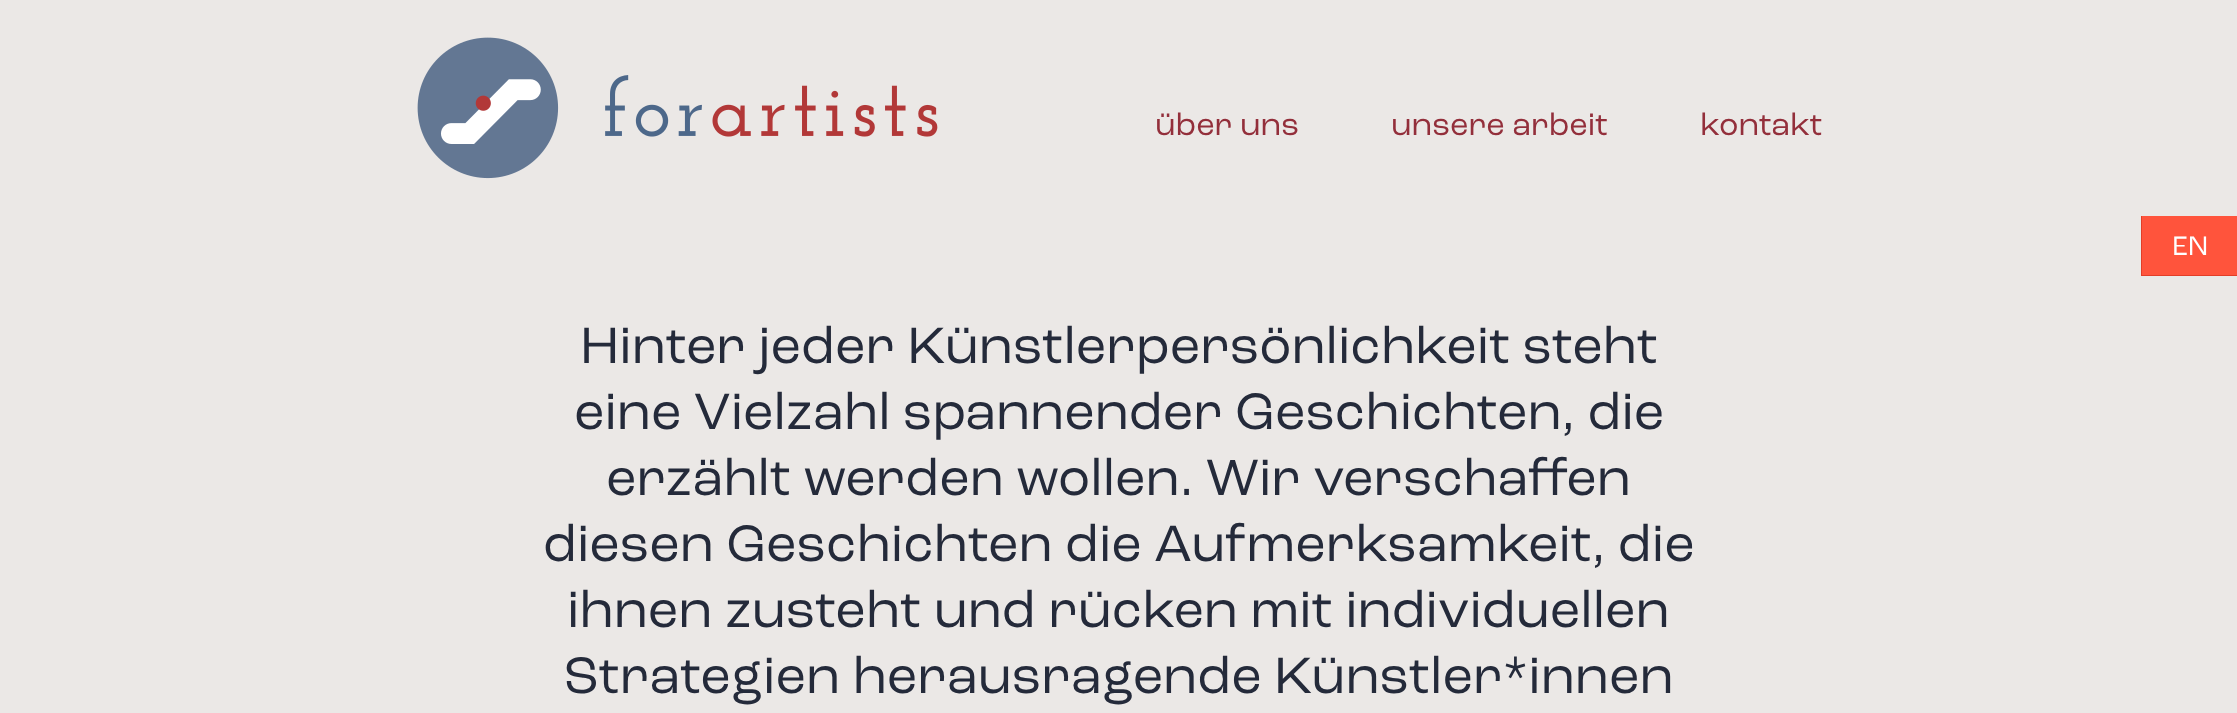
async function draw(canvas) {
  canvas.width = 2237
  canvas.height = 713
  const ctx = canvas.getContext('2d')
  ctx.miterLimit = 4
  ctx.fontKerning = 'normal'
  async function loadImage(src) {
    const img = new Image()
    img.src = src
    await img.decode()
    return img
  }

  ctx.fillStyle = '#ebe8e6'
  ctx.fillRect(0, 0, 2237, 713)
  ctx.font = '32.5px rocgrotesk'
  ctx.fillStyle = '#932f3b'
  ctx.fillText('über uns', 1155, 135)
  ctx.fillText('unsere arbeit', 1391, 135)
  ctx.fillText('kontakt', 1700, 135)
  ctx.drawImage(await loadImage('image0.png'), 417, 37, 521, 142)
  ctx.fillStyle = '#ff543c'
  ctx.fillRect(2142, 216, 95, 59)
  ctx.fillStyle = '#e23e28'
  ctx.fillRect(2141, 275, 96, 1)
  ctx.fillRect(2141, 216, 1, 60)
  ctx.font = '28px rocgrotesk'
  ctx.fillStyle = '#fff'
  ctx.fillText('EN', 2172, 255)
  ctx.font = '53.75px rocgrotesk'
  ctx.fillStyle = '#242a3a'
  ctx.fillText('Hinter jeder Künstlerpersönlichkeit steht', 580, 363)
  ctx.fillText('eine Vielzahl spannender Geschichten, die', 574, 429)
  ctx.fillText('erzählt werden wollen. Wir verschaffen', 606, 495)
  ctx.fillText('diesen Geschichten die Aufmerksamkeit, die', 543, 561)
  ctx.fillText('ihnen zusteht und rücken mit individuellen', 567, 627)
  ctx.fillText('Strategien herausragende Künstler*innen', 564, 693)
}

draw(document.querySelector('canvas'))
